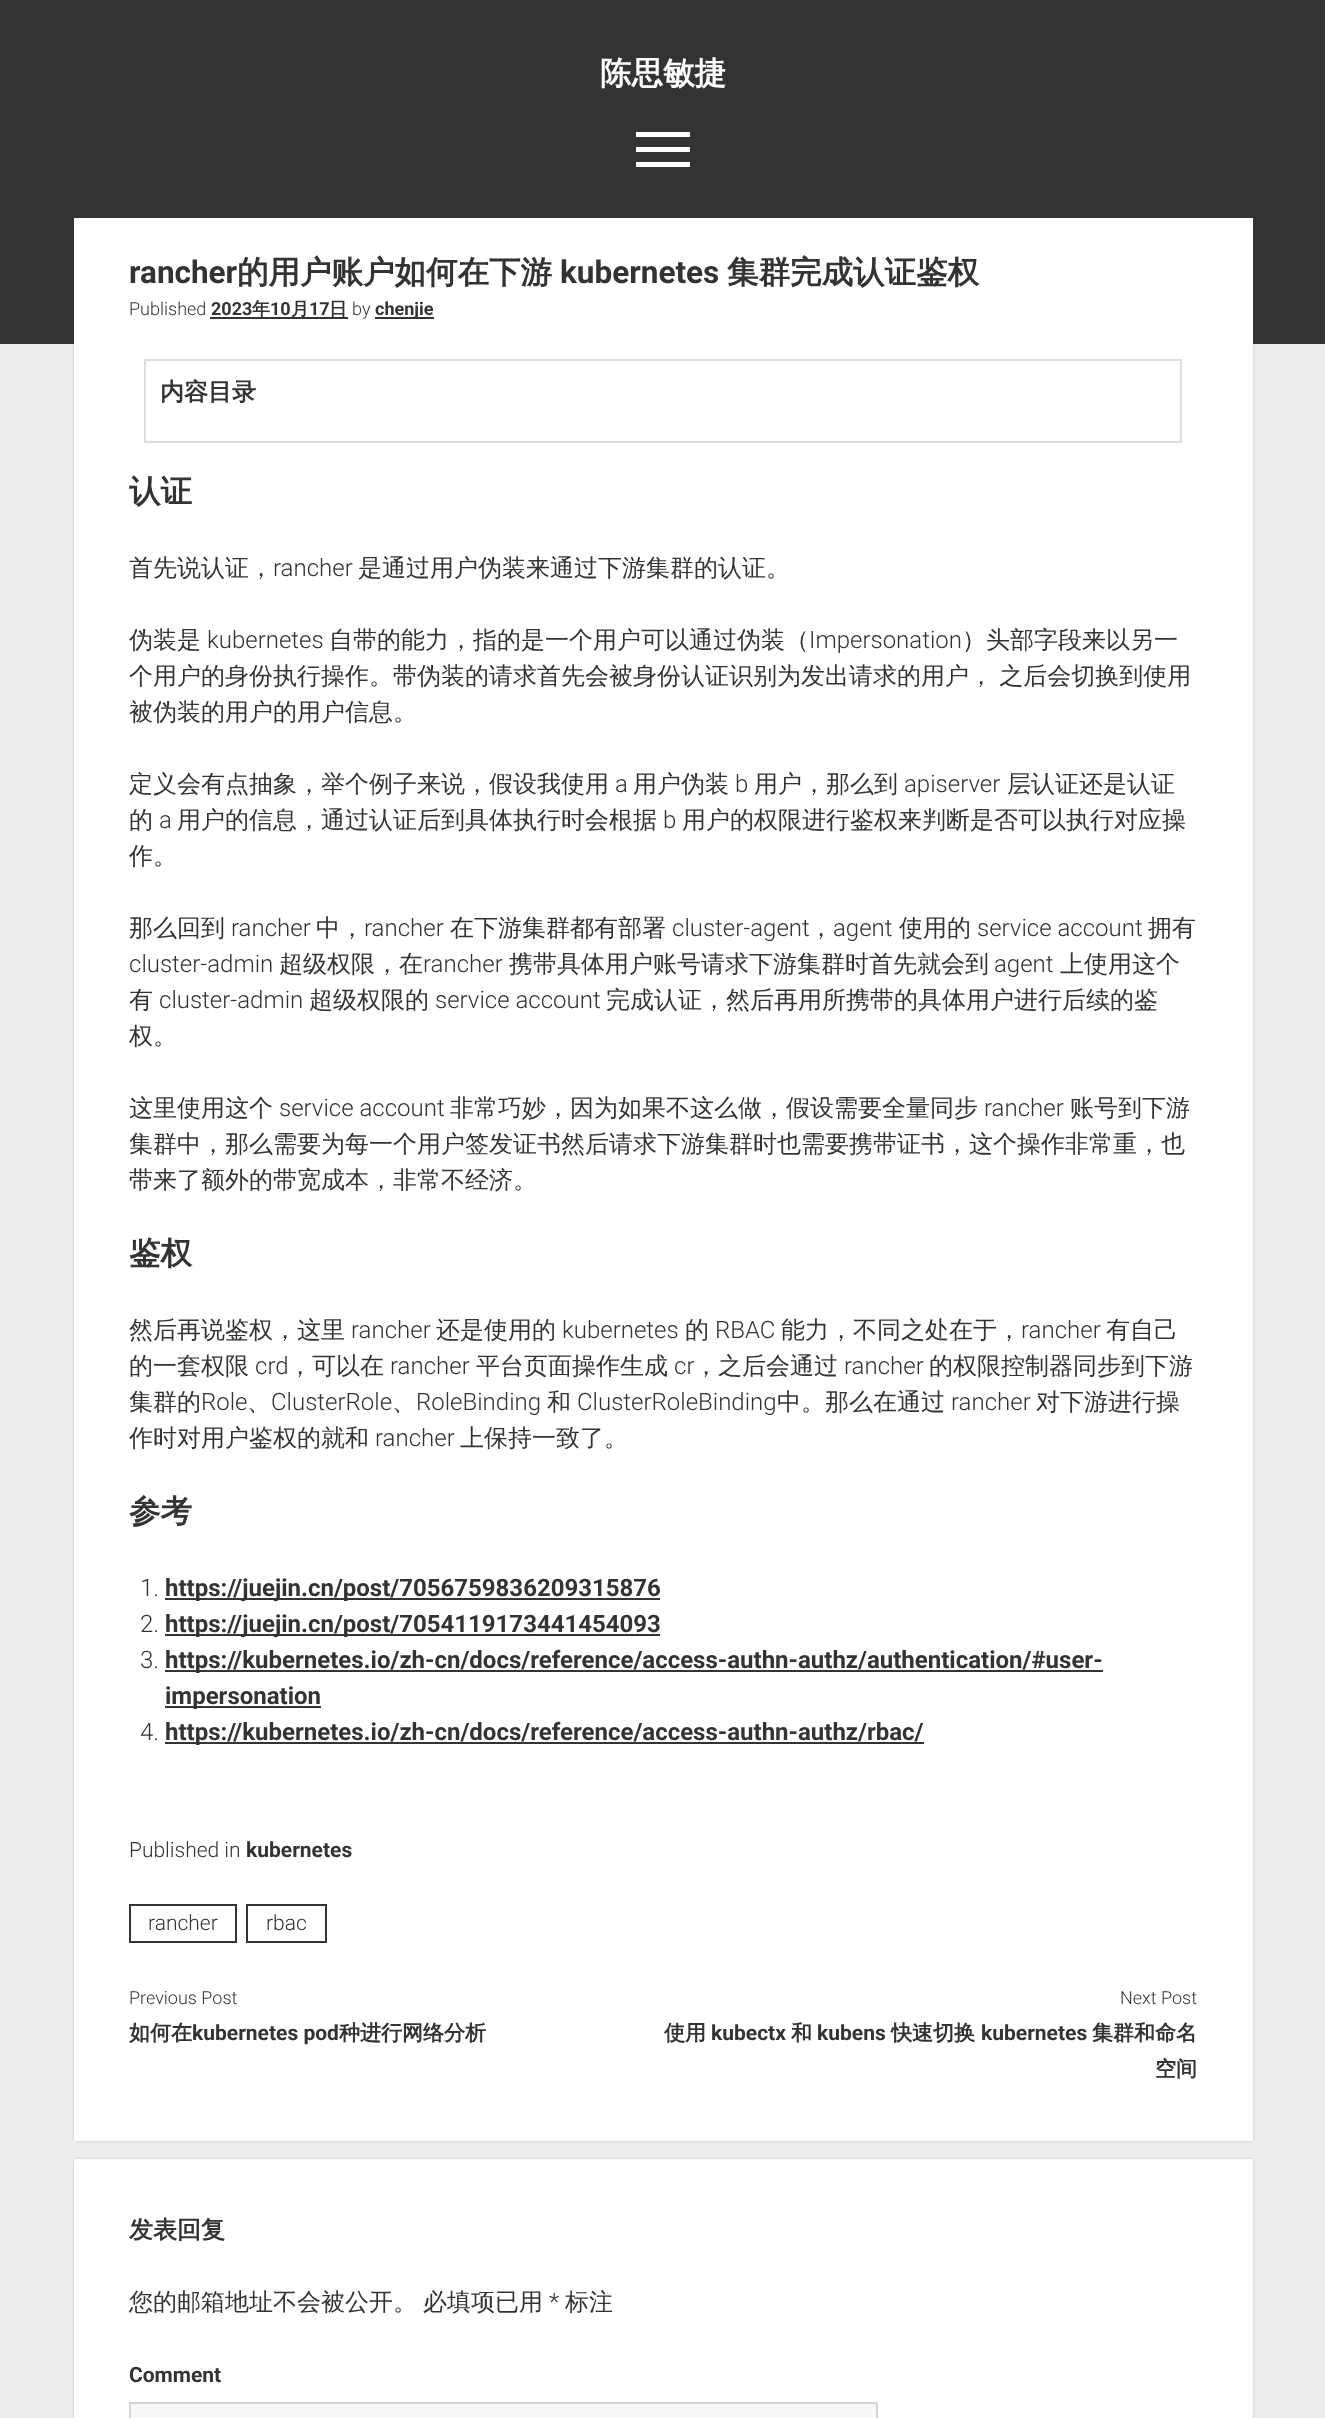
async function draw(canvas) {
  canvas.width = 1325
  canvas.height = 2418
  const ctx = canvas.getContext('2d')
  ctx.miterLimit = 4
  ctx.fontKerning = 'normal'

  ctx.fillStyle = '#ededed'
  ctx.fillRect(0, 0, 1325, 2418)
  ctx.fillStyle = '#333'
  ctx.fillRect(0, 0, 1325, 344)
  ctx.font = 'bold 31.5px WenQuanYi Zen Hei'
  ctx.fillStyle = '#fff'
  ctx.fillText('陈思敏捷', 600, 84)
  ctx.fillRect(636, 132, 54, 5)
  ctx.fillRect(636, 147, 54, 5)
  ctx.fillRect(636, 162, 54, 5)
  ctx.fillStyle = '#3a3a3a33'
  ctx.filter = 'blur(1.5px)'
  ctx.beginPath()
  ctx.rect(74, 218, 1179, 1923)
  ctx.fill()
  ctx.filter = 'none'
  ctx.fillStyle = '#fff'
  ctx.fillRect(74, 218, 1179, 1923)
  ctx.font = 'bold 31.5px Roboto'
  ctx.fillStyle = '#333'
  ctx.fillText('rancher', 129, 283)
  ctx.font = 'bold 31.5px WenQuanYi Zen Hei'
  ctx.fillText('的用户账户如何在下游', 237, 283)
  ctx.font = 'bold 31.5px Roboto'
  ctx.fillText('kubernetes', 560, 283)
  ctx.font = 'bold 31.5px WenQuanYi Zen Hei'
  ctx.fillText('集群完成认证鉴权', 727, 283)
  ctx.font = '300 18px Roboto'
  ctx.fillText('Published', 129, 315)
  ctx.font = 'bold 18px Roboto'
  ctx.fillText('2023', 211, 315)
  ctx.fillRect(210, 317, 138, 2)
  ctx.font = 'bold 18px WenQuanYi Zen Hei'
  ctx.fillText('年', 252, 315)
  ctx.font = 'bold 18px Roboto'
  ctx.fillText('10', 270, 315)
  ctx.font = 'bold 18px WenQuanYi Zen Hei'
  ctx.fillText('月', 291, 315)
  ctx.font = 'bold 18px Roboto'
  ctx.fillText('17', 309, 315)
  ctx.font = 'bold 18px WenQuanYi Zen Hei'
  ctx.fillText('日', 329, 315)
  ctx.font = '300 18px Roboto'
  ctx.fillText('by', 352, 315)
  ctx.fillRect(375, 317, 59, 2)
  ctx.font = 'bold 18px Roboto'
  ctx.fillText('chenjie', 375, 315)
  ctx.strokeStyle = '#ddd'
  ctx.lineWidth = 2
  ctx.strokeRect(145, 360, 1036, 82)
  ctx.font = 'bold 24px WenQuanYi Zen Hei'
  ctx.fillText('内容目录', 160, 400)
  ctx.font = 'bold 31.5px WenQuanYi Zen Hei'
  ctx.fillText('认证', 129, 502)
  ctx.font = '500 24px WenQuanYi Zen Hei'
  ctx.fillText('首先说认证，', 129, 576)
  ctx.font = '300 24px Roboto'
  ctx.fillText('rancher', 273, 576)
  ctx.font = '500 24px WenQuanYi Zen Hei'
  ctx.fillText('是通过用户伪装来通过下游集群的认证。', 358, 576)
  ctx.fillText('伪装是', 129, 648)
  ctx.font = '300 24px Roboto'
  ctx.fillText('kubernetes', 207, 648)
  ctx.font = '500 24px WenQuanYi Zen Hei'
  ctx.fillText('自带的能力，指的是一个用户可以通过伪装（', 329, 648)
  ctx.font = '300 24px Roboto'
  ctx.fillText('Impersonation', 809, 648)
  ctx.font = '500 24px WenQuanYi Zen Hei'
  ctx.fillText('）头部字段来以另一', 962, 648)
  ctx.wordSpacing = '-1px'
  ctx.fillText('个用户的身份执行操作。带伪装的请求首先会被身份认证识别为发出请求的用户， 之后会切换到使用', 129, 684)
  ctx.wordSpacing = '0px'
  ctx.fillText('被伪装的用户的用户信息。', 129, 720)
  ctx.fillText('定义会有点抽象，举个例子来说，假设我使用', 129, 792)
  ctx.font = '300 24px Roboto'
  ctx.fillText('a', 615, 792)
  ctx.font = '500 24px WenQuanYi Zen Hei'
  ctx.fillText('用户伪装', 633, 792)
  ctx.font = '300 24px Roboto'
  ctx.fillText('b', 735, 792)
  ctx.font = '500 24px WenQuanYi Zen Hei'
  ctx.fillText('用户，那么到', 754, 792)
  ctx.font = '300 24px Roboto'
  ctx.fillText('apiserver', 904, 792)
  ctx.font = '500 24px WenQuanYi Zen Hei'
  ctx.fillText('层认证还是认证', 1007, 792)
  ctx.fillText('的', 129, 828)
  ctx.font = '300 24px Roboto'
  ctx.fillText('a', 159, 828)
  ctx.font = '500 24px WenQuanYi Zen Hei'
  ctx.fillText('用户的信息，通过认证后到具体执行时会根据', 177, 828)
  ctx.font = '300 24px Roboto'
  ctx.fillText('b', 663, 828)
  ctx.font = '500 24px WenQuanYi Zen Hei'
  ctx.fillText('用户的权限进行鉴权来判断是否可以执行对应操', 682, 828)
  ctx.fillText('作。', 129, 864)
  ctx.fillText('那么回到', 129, 936)
  ctx.font = '300 24px Roboto'
  ctx.fillText('rancher', 231, 936)
  ctx.font = '500 24px WenQuanYi Zen Hei'
  ctx.fillText('中，', 316, 936)
  ctx.font = '300 24px Roboto'
  ctx.fillText('rancher', 364, 936)
  ctx.font = '500 24px WenQuanYi Zen Hei'
  ctx.fillText('在下游集群都有部署', 450, 936)
  ctx.font = '300 24px Roboto'
  ctx.fillText('cluster-agent', 672, 936)
  ctx.font = '500 24px WenQuanYi Zen Hei'
  ctx.fillText('，', 809, 936)
  ctx.font = '300 24px Roboto'
  ctx.fillText('agent', 833, 936)
  ctx.font = '500 24px WenQuanYi Zen Hei'
  ctx.fillText('使用的', 899, 936)
  ctx.font = '300 24px Roboto'
  ctx.fillText('service account', 977, 936)
  ctx.font = '500 24px WenQuanYi Zen Hei'
  ctx.fillText('拥有', 1148, 936)
  ctx.font = '300 24px Roboto'
  ctx.fillText('cluster-admin', 129, 972)
  ctx.font = '500 24px WenQuanYi Zen Hei'
  ctx.fillText('超级权限，在', 279, 972)
  ctx.font = '300 24px Roboto'
  ctx.fillText('rancher', 423, 972)
  ctx.font = '500 24px WenQuanYi Zen Hei'
  ctx.fillText('携带具体用户账号请求下游集群时首先就会到', 509, 972)
  ctx.font = '300 24px Roboto'
  ctx.fillText('agent', 994, 972)
  ctx.font = '500 24px WenQuanYi Zen Hei'
  ctx.fillText('上使用这个', 1060, 972)
  ctx.fillText('有', 129, 1008)
  ctx.font = '300 24px Roboto'
  ctx.fillText('cluster-admin', 159, 1008)
  ctx.font = '500 24px WenQuanYi Zen Hei'
  ctx.fillText('超级权限的', 309, 1008)
  ctx.font = '300 24px Roboto'
  ctx.fillText('service account', 435, 1008)
  ctx.font = '500 24px WenQuanYi Zen Hei'
  ctx.fillText('完成认证，然后再用所携带的具体用户进行后续的鉴', 606, 1008)
  ctx.fillText('权。', 129, 1044)
  ctx.fillText('这里使用这个', 129, 1116)
  ctx.font = '300 24px Roboto'
  ctx.fillText('service account', 279, 1116)
  ctx.font = '500 24px WenQuanYi Zen Hei'
  ctx.fillText('非常巧妙，因为如果不这么做，假设需要全量同步', 450, 1116)
  ctx.font = '300 24px Roboto'
  ctx.fillText('rancher', 984, 1116)
  ctx.font = '500 24px WenQuanYi Zen Hei'
  ctx.fillText('账号到下游', 1070, 1116)
  ctx.fillText('集群中，那么需要为每一个用户签发证书然后请求下游集群时也需要携带证书，这个操作非常重，也', 129, 1152)
  ctx.fillText('带来了额外的带宽成本，非常不经济。', 129, 1188)
  ctx.font = 'bold 31.5px WenQuanYi Zen Hei'
  ctx.fillText('鉴权', 129, 1264)
  ctx.font = '500 24px WenQuanYi Zen Hei'
  ctx.fillText('然后再说鉴权，这里', 129, 1338)
  ctx.font = '300 24px Roboto'
  ctx.fillText('rancher', 351, 1338)
  ctx.font = '500 24px WenQuanYi Zen Hei'
  ctx.fillText('还是使用的', 436, 1338)
  ctx.font = '300 24px Roboto'
  ctx.fillText('kubernetes', 562, 1338)
  ctx.font = '500 24px WenQuanYi Zen Hei'
  ctx.fillText('的', 685, 1338)
  ctx.font = '300 24px Roboto'
  ctx.fillText('RBAC', 715, 1338)
  ctx.font = '500 24px WenQuanYi Zen Hei'
  ctx.fillText('能力，不同之处在于，', 781, 1338)
  ctx.font = '300 24px Roboto'
  ctx.fillText('rancher', 1021, 1338)
  ctx.font = '500 24px WenQuanYi Zen Hei'
  ctx.fillText('有自己', 1106, 1338)
  ctx.fillText('的一套权限', 129, 1374)
  ctx.font = '300 24px Roboto'
  ctx.fillText('crd', 255, 1374)
  ctx.font = '500 24px WenQuanYi Zen Hei'
  ctx.fillText('，可以在', 288, 1374)
  ctx.font = '300 24px Roboto'
  ctx.fillText('rancher', 390, 1374)
  ctx.font = '500 24px WenQuanYi Zen Hei'
  ctx.fillText('平台页面操作生成', 476, 1374)
  ctx.font = '300 24px Roboto'
  ctx.fillText('cr', 674, 1374)
  ctx.font = '500 24px WenQuanYi Zen Hei'
  ctx.fillText('，之后会通过', 694, 1374)
  ctx.font = '300 24px Roboto'
  ctx.fillText('rancher', 844, 1374)
  ctx.font = '500 24px WenQuanYi Zen Hei'
  ctx.fillText('的权限控制器同步到下游', 929, 1374)
  ctx.fillText('集群的', 129, 1410)
  ctx.font = '300 24px Roboto'
  ctx.fillText('Role', 201, 1410)
  ctx.font = '500 24px WenQuanYi Zen Hei'
  ctx.fillText('、', 247, 1410)
  ctx.font = '300 24px Roboto'
  ctx.fillText('ClusterRole', 271, 1410)
  ctx.font = '500 24px WenQuanYi Zen Hei'
  ctx.fillText('、', 392, 1410)
  ctx.font = '300 24px Roboto'
  ctx.fillText('RoleBinding', 416, 1410)
  ctx.font = '500 24px WenQuanYi Zen Hei'
  ctx.fillText('和', 547, 1410)
  ctx.font = '300 24px Roboto'
  ctx.fillText('ClusterRoleBinding', 577, 1410)
  ctx.font = '500 24px WenQuanYi Zen Hei'
  ctx.fillText('中。那么在通过', 777, 1410)
  ctx.font = '300 24px Roboto'
  ctx.fillText('rancher', 951, 1410)
  ctx.font = '500 24px WenQuanYi Zen Hei'
  ctx.fillText('对下游进行操', 1036, 1410)
  ctx.fillText('作时对用户鉴权的就和', 129, 1446)
  ctx.font = '300 24px Roboto'
  ctx.fillText('rancher', 375, 1446)
  ctx.font = '500 24px WenQuanYi Zen Hei'
  ctx.fillText('上保持一致了。', 460, 1446)
  ctx.font = 'bold 31.5px WenQuanYi Zen Hei'
  ctx.fillText('参考', 129, 1522)
  ctx.font = '300 24px Roboto'
  ctx.fillText('1.', 140, 1596)
  ctx.fillRect(165, 1598, 495, 2)
  ctx.font = 'bold 24px Roboto'
  ctx.fillText('https://juejin.cn/post/7056759836209315876', 165, 1596)
  ctx.font = '300 24px Roboto'
  ctx.fillText('2.', 140, 1632)
  ctx.fillRect(165, 1634, 495, 2)
  ctx.font = 'bold 24px Roboto'
  ctx.fillText('https://juejin.cn/post/7054119173441454093', 165, 1632)
  ctx.font = '300 24px Roboto'
  ctx.fillText('3.', 140, 1668)
  ctx.fillRect(165, 1670, 938, 2)
  ctx.font = 'bold 24px Roboto'
  ctx.fillText('https://kubernetes.io/zh-cn/docs/reference/access-authn-authz/authentication/#user-', 165, 1668)
  ctx.fillRect(165, 1706, 156, 2)
  ctx.fillText('impersonation', 165, 1704)
  ctx.font = '300 24px Roboto'
  ctx.fillText('4.', 140, 1740)
  ctx.fillRect(165, 1742, 759, 2)
  ctx.font = 'bold 24px Roboto'
  ctx.fillText('https://kubernetes.io/zh-cn/docs/reference/access-authn-authz/rbac/', 165, 1740)
  ctx.font = '300 21px Roboto'
  ctx.fillText('Published in', 129, 1857)
  ctx.font = 'bold 21px Roboto'
  ctx.fillText('kubernetes', 246, 1857)
  ctx.strokeStyle = '#333'
  ctx.strokeRect(130, 1905, 106, 37)
  ctx.font = '300 21px Roboto'
  ctx.fillText('rancher', 148, 1930)
  ctx.strokeRect(247, 1905, 79, 37)
  ctx.fillText('rbac', 266, 1930)
  ctx.font = '300 18px Roboto'
  ctx.fillText('Previous Post', 129, 2004)
  ctx.font = 'bold 21px WenQuanYi Zen Hei'
  ctx.fillText('如何在', 129, 2040)
  ctx.font = 'bold 21px Roboto'
  ctx.fillText('kubernetes pod', 192, 2040)
  ctx.font = 'bold 21px WenQuanYi Zen Hei'
  ctx.fillText('种进行网络分析', 339, 2040)
  ctx.font = '300 18px Roboto'
  ctx.fillText('Next Post', 1120, 2004)
  ctx.font = 'bold 21px WenQuanYi Zen Hei'
  ctx.fillText('使用', 664, 2040)
  ctx.font = 'bold 21px Roboto'
  ctx.fillText('kubectx', 711, 2040)
  ctx.font = 'bold 21px WenQuanYi Zen Hei'
  ctx.fillText('和', 791, 2040)
  ctx.font = 'bold 21px Roboto'
  ctx.fillText('kubens', 817, 2040)
  ctx.font = 'bold 21px WenQuanYi Zen Hei'
  ctx.fillText('快速切换', 891, 2040)
  ctx.font = 'bold 21px Roboto'
  ctx.fillText('kubernetes', 981, 2040)
  ctx.font = 'bold 21px WenQuanYi Zen Hei'
  ctx.fillText('集群和命名', 1092, 2040)
  ctx.fillText('空间', 1155, 2076)
  ctx.fillStyle = '#3a3a3a33'
  ctx.filter = 'blur(1.5px)'
  ctx.beginPath()
  ctx.rect(74, 2159, 1179, 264)
  ctx.fill()
  ctx.filter = 'none'
  ctx.fillStyle = '#fff'
  ctx.fillRect(74, 2159, 1179, 259)
  ctx.font = 'bold 24px WenQuanYi Zen Hei'
  ctx.fillStyle = '#333'
  ctx.fillText('发表回复', 129, 2238)
  ctx.font = '500 24px WenQuanYi Zen Hei'
  ctx.fillText('您的邮箱地址不会被公开。', 129, 2310)
  ctx.fillText('必填项已用', 423, 2310)
  ctx.font = '300 24px Roboto'
  ctx.fillText('*', 549, 2310)
  ctx.font = '500 24px WenQuanYi Zen Hei'
  ctx.fillText('标注', 565, 2310)
  ctx.font = 'bold 21px Roboto'
  ctx.fillText('Comment', 129, 2382)
  ctx.fillStyle = '#f7f7f7'
  ctx.beginPath()
  ctx.rect(130, 2403, 747, 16)
  ctx.fill()
  ctx.strokeStyle = '#d4d4d4'
  ctx.stroke()
}

draw(document.querySelector('canvas'))
